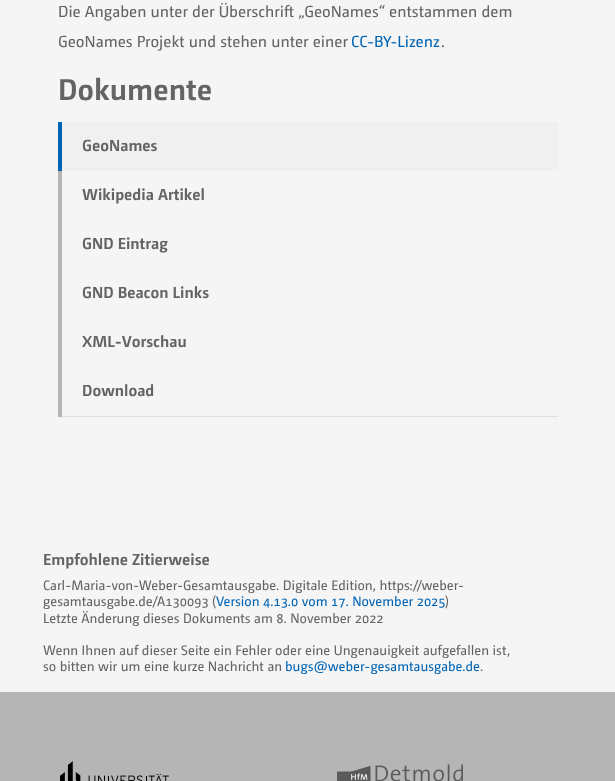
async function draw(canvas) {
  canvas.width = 615
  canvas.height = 781
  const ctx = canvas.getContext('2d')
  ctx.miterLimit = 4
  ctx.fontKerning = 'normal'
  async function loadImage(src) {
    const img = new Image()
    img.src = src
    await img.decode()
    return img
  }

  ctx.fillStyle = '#f5f5f5'
  ctx.fillRect(0, 0, 615, 781)
  ctx.font = '16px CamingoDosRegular'
  ctx.fillStyle = '#646464'
  ctx.fillText('Die Angaben unter der Überschrift „GeoNames“ entstammen dem', 58, 17)
  ctx.fillText('GeoNames Projekt und stehen unter einer', 58, 47)
  ctx.fillStyle = '#0064b4'
  ctx.fillText('CC-BY-Lizenz', 351, 47)
  ctx.fillStyle = '#646464'
  ctx.fillText('.', 441, 47)
  ctx.font = 'bold 30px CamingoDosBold'
  ctx.fillText('Dokumente', 58, 100)
  ctx.fillStyle = '#dee2e6'
  ctx.fillRect(58, 416, 500, 1)
  ctx.fillStyle = '#f0f0f0'
  ctx.fillRect(62, 122, 496, 49)
  ctx.fillStyle = '#0064b4'
  ctx.fillRect(58, 122, 4, 50)
  ctx.font = 'bold 16px CamingoDosBold'
  ctx.fillStyle = '#646464'
  ctx.fillText('GeoNames', 82, 151)
  ctx.fillStyle = '#b5b5b5'
  ctx.fillRect(58, 171, 4, 246)
  ctx.fillStyle = '#646464'
  ctx.fillText('Wikipedia Artikel', 82, 200)
  ctx.fillText('GND Eintrag', 82, 249)
  ctx.fillText('GND Beacon Links', 82, 298)
  ctx.fillText('XML-Vorschau', 82, 347)
  ctx.fillText('Download', 82, 396)
  ctx.fillText('Empfohlene Zitierweise', 43, 565)
  ctx.font = '13.6px CamingoDosRegular'
  ctx.fillText('Carl-Maria-von-Weber-Gesamtausgabe. Digitale Edition, https://weber-', 43, 590)
  ctx.fillText('gesamtausgabe.de/A130093 (', 43, 606)
  ctx.fillStyle = '#0064b4'
  ctx.fillText('Version 4.13.0 vom 17. November 2025', 216, 606)
  ctx.fillStyle = '#646464'
  ctx.fillText(')', 445, 606)
  ctx.fillText('Letzte Änderung dieses Dokuments am 8. November 2022', 43, 623)
  ctx.fillText('Wenn Ihnen auf dieser Seite ein Fehler oder eine Ungenauigkeit aufgefallen ist,', 43, 655)
  ctx.fillText('so bitten wir um eine kurze Nachricht an', 43, 671)
  ctx.fillStyle = '#0064b4'
  ctx.fillText('bugs@weber-gesamtausgabe.de', 285, 671)
  ctx.fillStyle = '#646464'
  ctx.fillText('.', 480, 671)
  ctx.fillStyle = '#b5b5b5'
  ctx.fillRect(0, 692, 615, 89)
  ctx.drawImage(await loadImage('image0.png'), 60, 761, 109, 20)
  ctx.drawImage(await loadImage('image1.png'), 337, 764, 126, 17)
}

draw(document.querySelector('canvas'))
